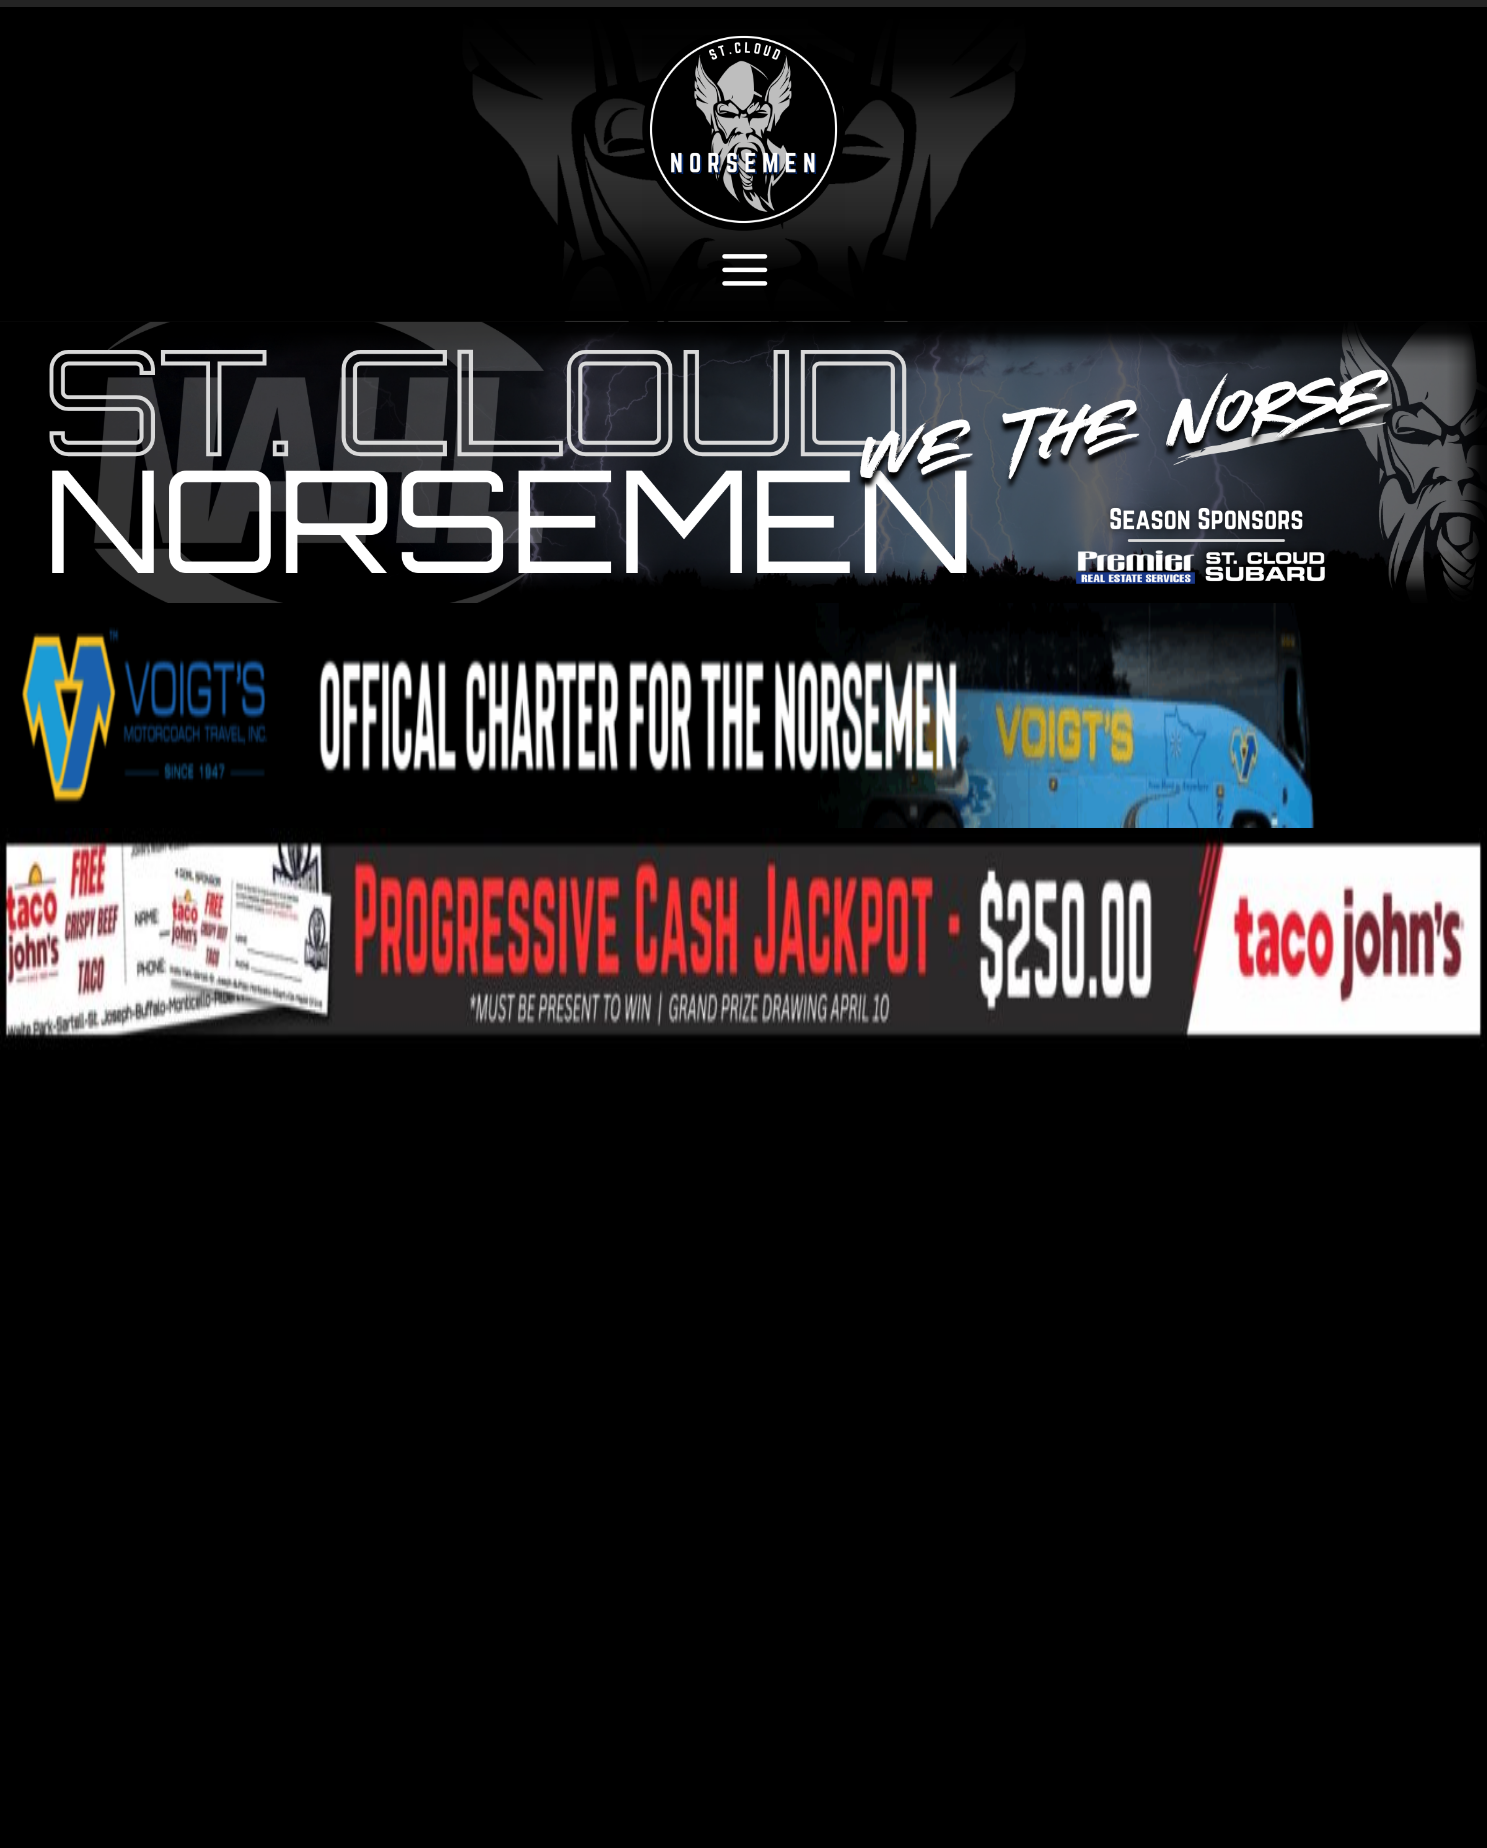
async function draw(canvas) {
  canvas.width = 1487
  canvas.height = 1848
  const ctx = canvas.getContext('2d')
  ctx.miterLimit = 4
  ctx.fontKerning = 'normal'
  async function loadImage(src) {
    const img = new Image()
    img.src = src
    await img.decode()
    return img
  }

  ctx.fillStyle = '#000'
  ctx.fillRect(0, 0, 1487, 1848)
  ctx.fillStyle = '#242424'
  ctx.fillRect(0, 0, 1487, 322)
  ctx.fillStyle = '#000'
  ctx.fillRect(0, 7, 1487, 2)
  ctx.drawImage(await loadImage('image3.png'), 0, 321, 1487, 282)
  ctx.drawImage(await loadImage('image0.png'), 0, 9, 1487, 313)
  ctx.drawImage(await loadImage('image1.png'), 642, 35, 203, 196)
  ctx.drawImage(await loadImage('image2.png'), 722, 254, 46, 32)
  ctx.drawImage(await loadImage('image4.png'), 21, 603, 1294, 225)
  ctx.drawImage(await loadImage('image5.png'), 0, 828, 1485, 222)
}

draw(document.querySelector('canvas'))
